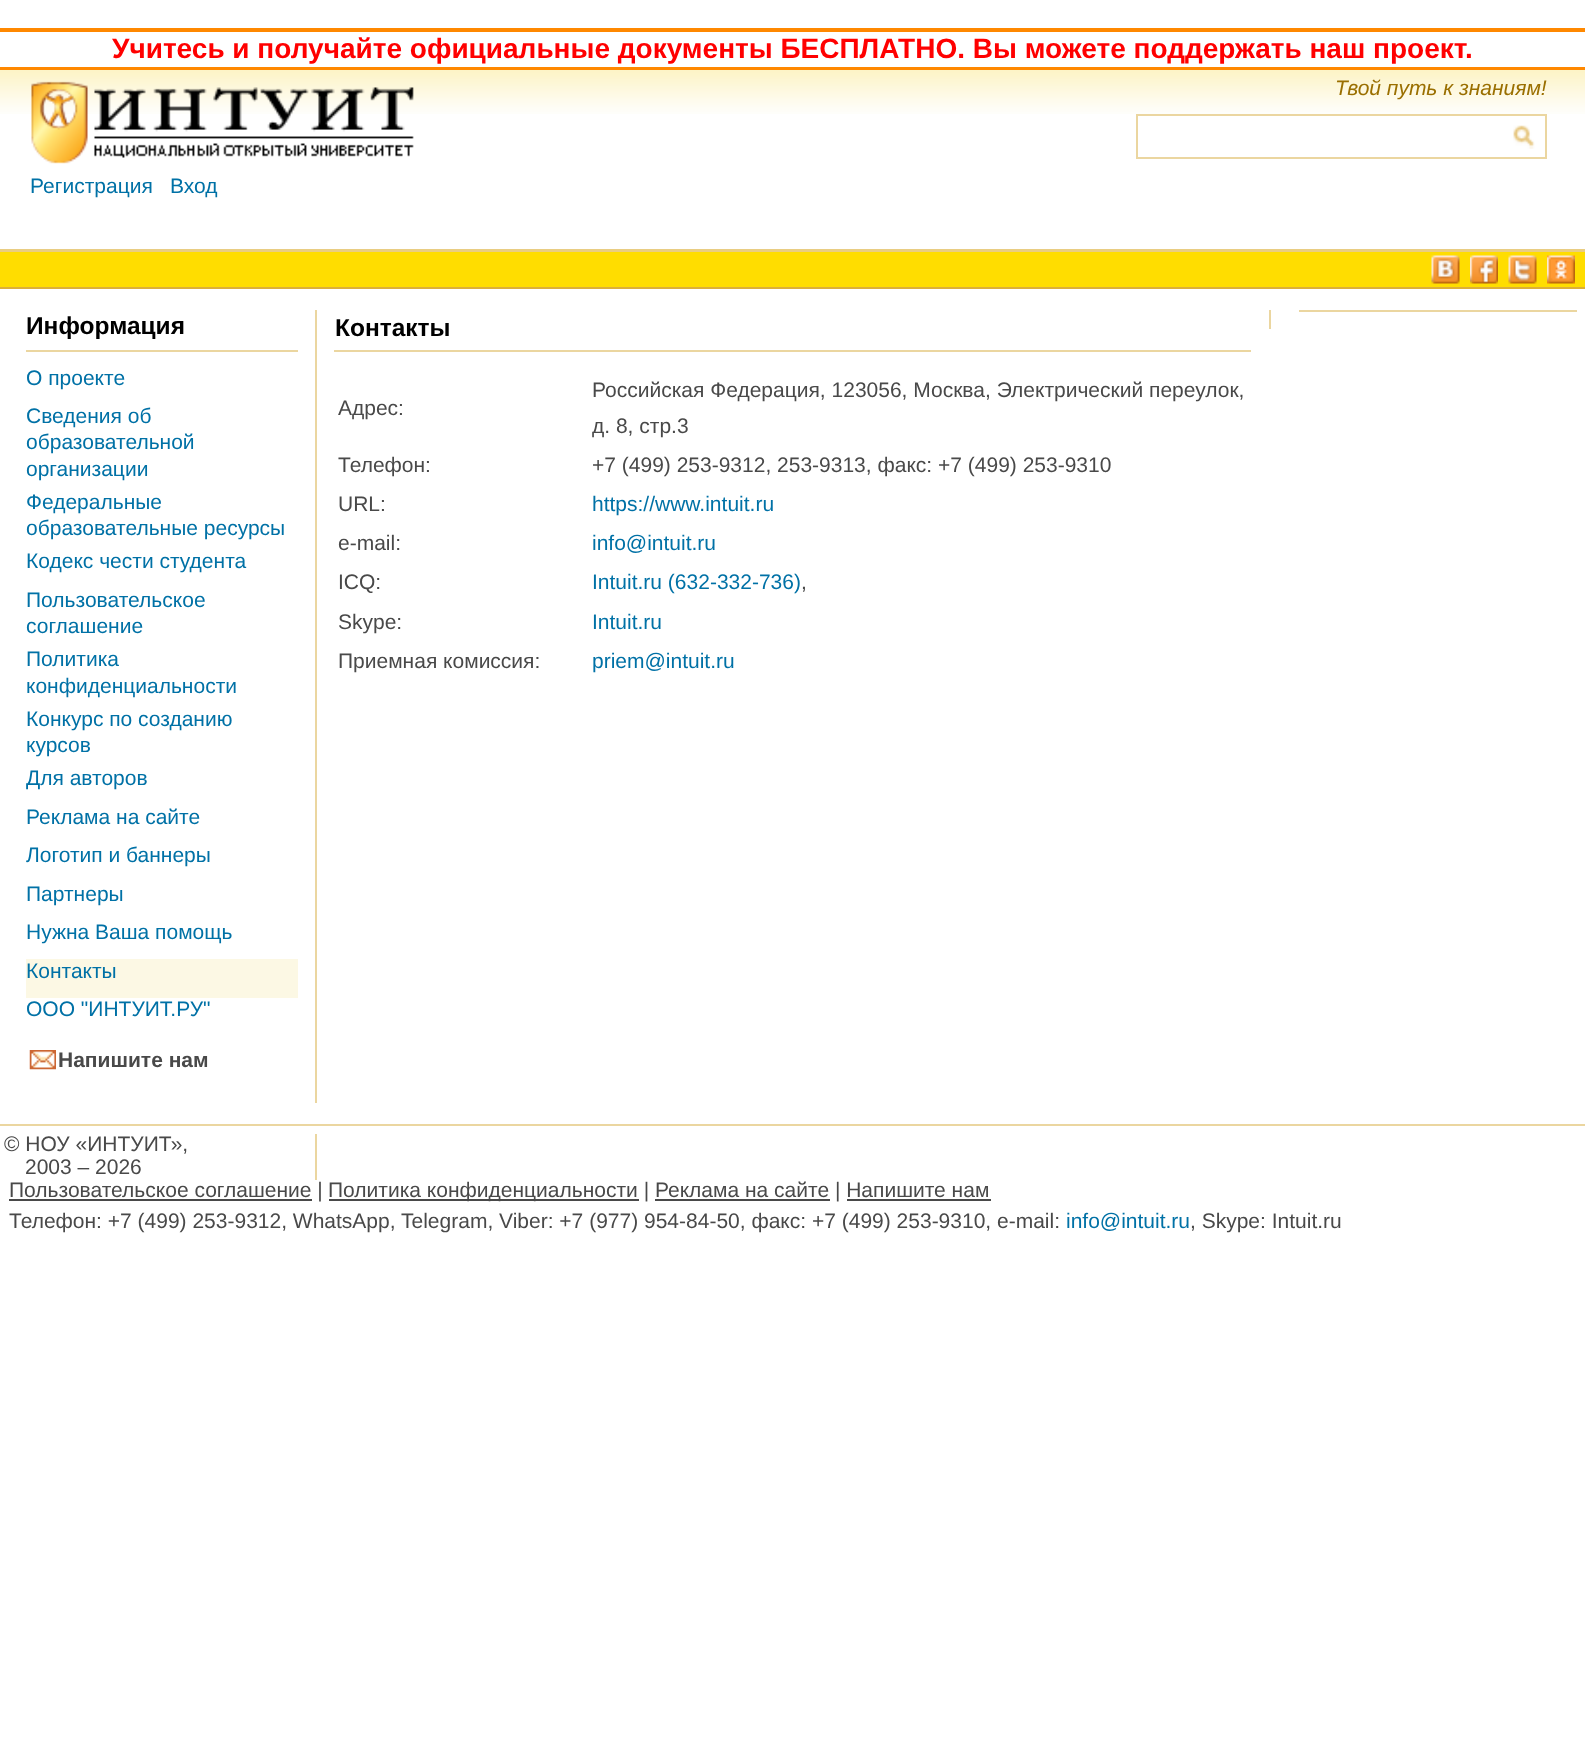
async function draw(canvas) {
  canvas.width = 1585
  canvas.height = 1744
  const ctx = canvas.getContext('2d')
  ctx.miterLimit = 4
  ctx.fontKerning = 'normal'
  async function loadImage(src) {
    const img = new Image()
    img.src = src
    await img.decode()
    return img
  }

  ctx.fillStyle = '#fff'
  ctx.fillRect(0, 0, 1585, 1744)
  ctx.fillStyle = '#f80'
  ctx.fillRect(0, 28, 1585, 4)
  ctx.fillRect(0, 67, 1585, 3)
  ctx.font = 'bold 28px Liberation Sans'
  ctx.fillStyle = '#f00'
  ctx.fillText('Учитесь и получайте официальные документы БЕСПЛАТНО. Вы можете поддержать наш проект.', 112, 58)
  ctx.drawImage(await loadImage('image0.png'), 0, 70, 1585, 44)
  ctx.drawImage(await loadImage('image1.png'), 31, 81, 383, 83)
  ctx.font = 'italic 21px Liberation Sans'
  ctx.fillStyle = '#9a6f00'
  ctx.fillText('Твой путь к знаниям!', 1335, 95)
  ctx.strokeStyle = '#ebd6a0'
  ctx.lineWidth = 2
  ctx.strokeRect(1137, 115, 409, 43)
  ctx.drawImage(await loadImage('image2.png'), 1513, 125, 22, 24)
  ctx.font = '21px Liberation Sans'
  ctx.fillStyle = '#0071a6'
  ctx.fillText('Регистрация', 30, 193)
  ctx.fillText('Вход', 170, 193)
  ctx.fillStyle = '#e9cd82'
  ctx.fillRect(0, 249, 1585, 3)
  ctx.fillStyle = '#fd0'
  ctx.fillRect(0, 252, 1585, 35)
  ctx.fillStyle = '#dcaf38'
  ctx.fillRect(0, 287, 1585, 2)
  ctx.drawImage(await loadImage('image3.png'), 1431, 255, 29, 29)
  ctx.drawImage(await loadImage('image4.png'), 1470, 255, 28, 29)
  ctx.drawImage(await loadImage('image5.png'), 1508, 255, 29, 29)
  ctx.drawImage(await loadImage('image6.png'), 1547, 255, 28, 29)
  ctx.fillStyle = '#ebd6a0'
  ctx.fillRect(315, 310, 2, 793)
  ctx.fillRect(26, 350, 272, 2)
  ctx.font = 'bold 24.5px Liberation Sans'
  ctx.fillStyle = '#000'
  ctx.fillText('Информация', 26, 334)
  ctx.font = '21px Liberation Sans'
  ctx.fillStyle = '#0071a6'
  ctx.fillText('О проекте', 26, 385)
  ctx.fillText('Сведения об', 26, 423)
  ctx.fillText('образовательной', 26, 449)
  ctx.fillText('организации', 26, 476)
  ctx.fillText('Федеральные', 26, 509)
  ctx.fillText('образовательные ресурсы', 26, 535)
  ctx.fillText('Кодекс чести студента', 26, 568)
  ctx.fillText('Пользовательское', 26, 607)
  ctx.fillText('соглашение', 26, 633)
  ctx.fillText('Политика', 26, 666)
  ctx.fillText('конфиденциальности', 26, 693)
  ctx.fillText('Конкурс по созданию', 26, 726)
  ctx.fillText('курсов', 26, 752)
  ctx.fillText('Для авторов', 26, 785)
  ctx.fillText('Реклама на сайте', 26, 824)
  ctx.fillText('Логотип и баннеры', 26, 862)
  ctx.fillText('Партнеры', 26, 901)
  ctx.fillText('Нужна Ваша помощь', 26, 939)
  ctx.fillStyle = '#fcf8e4'
  ctx.fillRect(26, 959, 272, 39)
  ctx.fillStyle = '#0071a6'
  ctx.fillText('Контакты', 26, 978)
  ctx.fillText('ООО "ИНТУИТ.РУ"', 26, 1016)
  ctx.drawImage(await loadImage('image7.png'), 29, 1050, 27, 20)
  ctx.font = 'bold 21px Liberation Sans'
  ctx.fillStyle = '#494949'
  ctx.fillText('Напишите нам', 58, 1067)
  ctx.fillStyle = '#ebd6a0'
  ctx.fillRect(334, 350, 917, 2)
  ctx.font = 'bold 24.5px Liberation Sans'
  ctx.fillStyle = '#000'
  ctx.fillText('Контакты', 335, 336)
  ctx.font = '21px Liberation Sans'
  ctx.fillStyle = '#494949'
  ctx.fillText('Адрес:', 338, 415)
  ctx.fillText('Российская Федерация, 123056, Москва, Электрический переулок,', 592, 397)
  ctx.fillText('д. 8, стр.3', 592, 433)
  ctx.fillText('Телефон:', 338, 472)
  ctx.fillText('+7 (499) 253-9312, 253-9313, факс: +7 (499) 253-9310', 592, 472)
  ctx.fillText('URL:', 338, 511)
  ctx.fillStyle = '#0071a6'
  ctx.fillText('https://www.intuit.ru', 592, 511)
  ctx.fillStyle = '#494949'
  ctx.fillText('e-mail:', 338, 550)
  ctx.fillStyle = '#0071a6'
  ctx.fillText('info@intuit.ru', 592, 550)
  ctx.fillStyle = '#494949'
  ctx.fillText('ICQ:', 338, 589)
  ctx.fillStyle = '#0071a6'
  ctx.fillText('Intuit.ru (632-332-736)', 592, 589)
  ctx.fillStyle = '#494949'
  ctx.fillText(',', 801, 589)
  ctx.fillText('Skype:', 338, 629)
  ctx.fillStyle = '#0071a6'
  ctx.fillText('Intuit.ru', 592, 629)
  ctx.fillStyle = '#494949'
  ctx.fillText('Приемная комиссия:', 338, 668)
  ctx.fillStyle = '#0071a6'
  ctx.fillText('priem@intuit.ru', 592, 668)
  ctx.fillStyle = '#ebd6a0'
  ctx.fillRect(1269, 310, 2, 19)
  ctx.fillRect(1299, 310, 278, 2)
  ctx.fillRect(0, 1124, 1585, 2)
  ctx.fillRect(315, 1134, 2, 46)
  ctx.fillStyle = '#494949'
  ctx.fillText('© НОУ «ИНТУИТ»,', 4, 1151)
  ctx.fillText('2003 – 2026', 25, 1174)
  ctx.fillRect(9, 1199, 303, 2)
  ctx.fillText('Пользовательское соглашение |', 9, 1197)
  ctx.fillRect(329, 1199, 310, 2)
  ctx.fillText('Политика конфиденциальности | Реклама на сайте | Напишите нам', 328, 1197)
  ctx.fillRect(655, 1199, 175, 2)
  ctx.fillRect(847, 1199, 144, 2)
  ctx.fillText('Телефон: +7 (499) 253-9312, WhatsApp, Telegram, Viber: +7 (977) 954-84-50, факс: +7 (499) 253-9310, e-mail:', 9, 1228)
  ctx.fillStyle = '#0071a6'
  ctx.fillText('info@intuit.ru', 1066, 1228)
  ctx.fillStyle = '#494949'
  ctx.fillText(', Skype: Intuit.ru', 1190, 1228)
}

draw(document.querySelector('canvas'))
